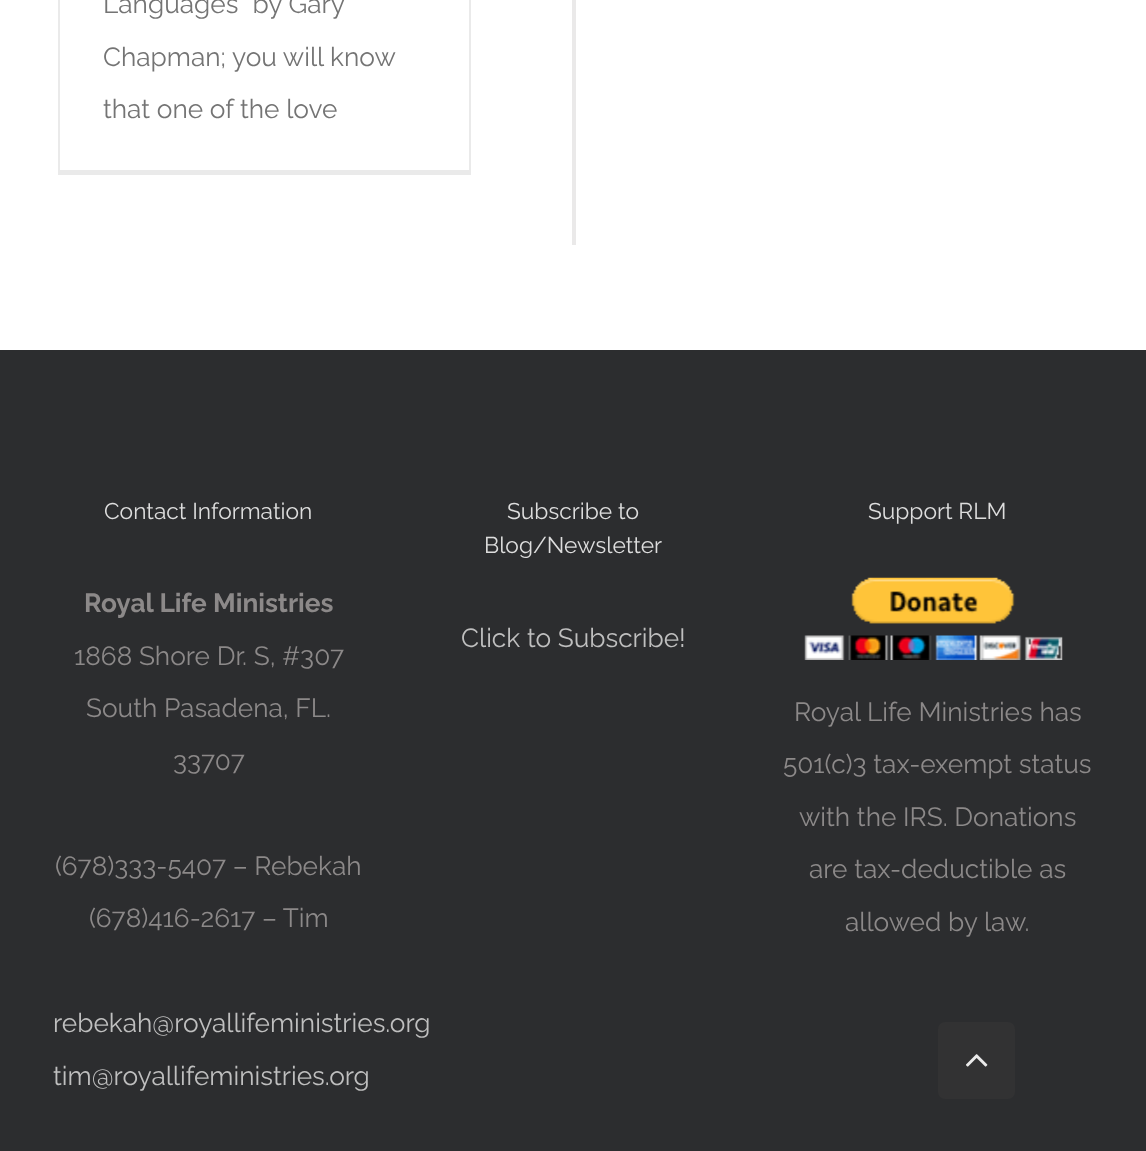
async function draw(canvas) {
  canvas.width = 1146
  canvas.height = 1151
  const ctx = canvas.getContext('2d')
  ctx.miterLimit = 4
  ctx.fontKerning = 'normal'
  async function loadImage(src) {
    const img = new Image()
    img.src = src
    await img.decode()
    return img
  }

  ctx.fillStyle = '#fff'
  ctx.fillRect(0, 0, 1146, 1151)
  ctx.fillStyle = '#eaeaea'
  ctx.fillRect(469, 0, 2, 175)
  ctx.fillRect(58, 170, 413, 5)
  ctx.fillRect(58, 0, 2, 175)
  ctx.font = '26.25px Raleway'
  ctx.fillStyle = '#747474'
  ctx.fillText('Languages” by Gary', 103, 13)
  ctx.fillText('Chapman; you will know', 103, 66)
  ctx.fillText('that one of the love', 103, 118)
  ctx.fillStyle = '#eae9e9'
  ctx.fillRect(572, 0, 4, 245)
  ctx.fillStyle = '#2c2d2f'
  ctx.fillRect(0, 350, 1146, 801)
  ctx.font = '22.75px Raleway'
  ctx.fillStyle = '#ddd'
  ctx.fillText('Contact Information', 104, 519)
  ctx.font = 'bold 26.25px Raleway'
  ctx.fillStyle = '#8c8989'
  ctx.fillText('Royal Life Ministries', 84, 612)
  ctx.font = '26.25px Raleway'
  ctx.fillText('1868 Shore Dr. S, #307', 74, 665)
  ctx.fillText('South Pasadena, FL.', 86, 717)
  ctx.fillText('33707', 173, 770)
  ctx.fillText('(678)333-5407 – Rebekah', 55, 875)
  ctx.fillText('(678)416-2617 – Tim', 89, 927)
  ctx.fillStyle = '#bfbfbf'
  ctx.fillText('rebekah@royallifeministries.org', 53, 1032)
  ctx.fillText('tim@royallifeministries.org', 53, 1085)
  ctx.font = '22.75px Raleway'
  ctx.fillStyle = '#ddd'
  ctx.fillText('Subscribe to', 507, 519)
  ctx.fillText('Blog/Newsletter', 484, 553)
  ctx.font = '26.25px Raleway'
  ctx.fillStyle = '#bfbfbf'
  ctx.fillText('Click to Subscribe!', 461, 647)
  ctx.font = '22.75px Raleway'
  ctx.fillStyle = '#ddd'
  ctx.fillText('Support RLM', 868, 519)
  ctx.drawImage(await loadImage('image0.png'), 804, 577, 259, 83)
  ctx.font = '26.25px Raleway'
  ctx.fillStyle = '#8c8989'
  ctx.fillText('Royal Life Ministries has', 794, 721)
  ctx.fillText('501(c)3 tax-exempt status', 783, 773)
  ctx.fillText('with the IRS. Donations', 799, 826)
  ctx.fillText('are tax-deductible as', 809, 878)
  ctx.fillText('allowed by law.', 845, 931)
  ctx.fillStyle = '#323233'
  ctx.beginPath()
  ctx.roundRect(938, 1022, 77, 77, 7)
  ctx.fill()
  ctx.drawImage(await loadImage('image1.png'), 966, 1054, 22, 13)
}

draw(document.querySelector('canvas'))
